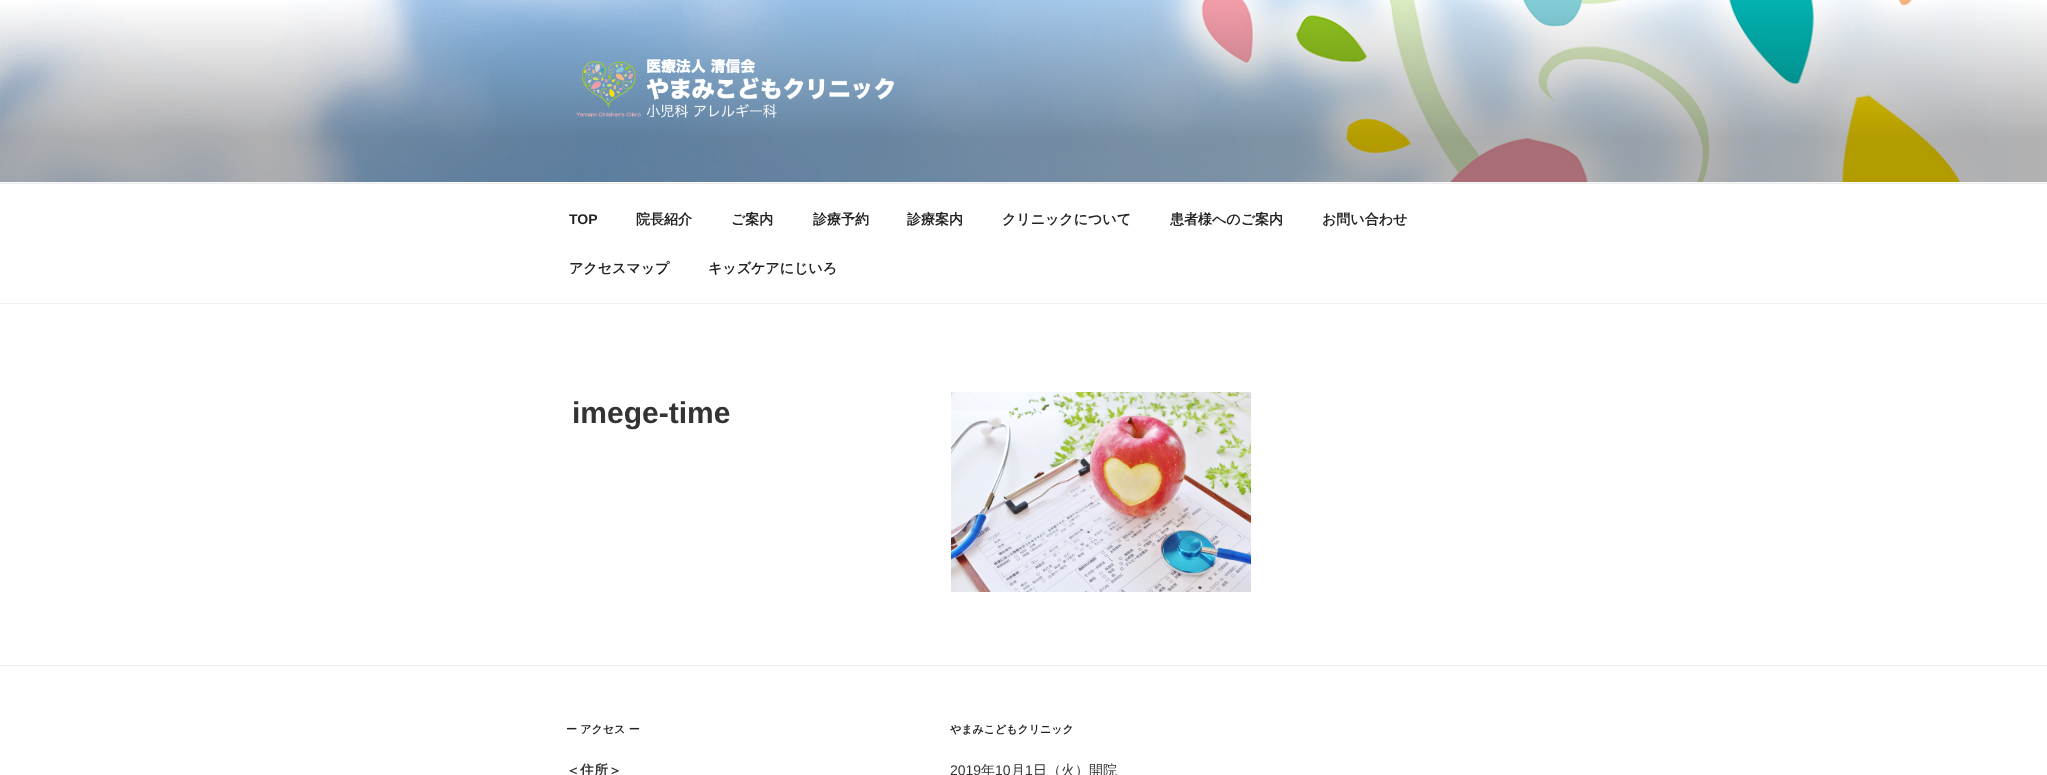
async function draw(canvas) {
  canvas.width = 2047
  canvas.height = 775
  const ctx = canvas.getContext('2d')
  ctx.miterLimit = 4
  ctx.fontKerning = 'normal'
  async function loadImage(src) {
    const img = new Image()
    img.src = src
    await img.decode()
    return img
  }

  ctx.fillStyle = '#fff'
  ctx.fillRect(0, 0, 2047, 775)
  ctx.fillStyle = '#fafafa'
  ctx.fillRect(0, 182, 2047, 1)
  ctx.drawImage(await loadImage('image0.png'), 0, 0, 2047, 182)
  ctx.drawImage(await loadImage('image1.png'), 576, 58, 319, 60)
  ctx.fillStyle = '#eee'
  ctx.fillRect(0, 183, 2047, 1)
  ctx.fillRect(0, 303, 2047, 1)
  ctx.font = 'bold 14px Liberation Sans'
  ctx.fillStyle = '#222'
  ctx.fillText('TOP', 569, 224)
  ctx.font = 'bold 14px WenQuanYi Zen Hei'
  ctx.fillText('院長紹介', 636, 224)
  ctx.fillText('ご案内', 731, 224)
  ctx.fillText('診療予約', 813, 224)
  ctx.fillText('診療案内', 907, 224)
  ctx.fillText('クリニックについて', 1002, 224)
  ctx.fillText('患者様へのご案内', 1170, 224)
  ctx.fillText('お問い合わせ', 1322, 224)
  ctx.fillText('アクセスマップ', 569, 273)
  ctx.fillText('キッズケアにじいろ', 708, 273)
  ctx.font = 'bold 30px Liberation Sans'
  ctx.fillStyle = '#333'
  ctx.fillText('imege-time', 572, 423)
  ctx.drawImage(await loadImage('image2.png'), 951, 392, 300, 200)
  ctx.fillStyle = '#eee'
  ctx.fillRect(0, 665, 2047, 1)
  ctx.font = 'bold 11px WenQuanYi Zen Hei'
  ctx.fillStyle = '#222'
  ctx.fillText('ー アクセス ー', 566, 733)
  ctx.font = 'bold 14px WenQuanYi Zen Hei'
  ctx.fillStyle = '#333'
  ctx.fillText('＜住所＞', 566, 775)
  ctx.font = 'bold 11px WenQuanYi Zen Hei'
  ctx.fillStyle = '#222'
  ctx.fillText('やまみこどもクリニック', 950, 733)
  ctx.font = '14px Liberation Sans'
  ctx.fillStyle = '#333'
  ctx.fillText('2019', 950, 775)
  ctx.font = '500 14px WenQuanYi Zen Hei'
  ctx.fillText('年', 981, 775)
  ctx.font = '14px Liberation Sans'
  ctx.fillText('10', 995, 775)
  ctx.font = '500 14px WenQuanYi Zen Hei'
  ctx.fillText('月', 1011, 775)
  ctx.font = '14px Liberation Sans'
  ctx.fillText('1', 1025, 775)
  ctx.font = '500 14px WenQuanYi Zen Hei'
  ctx.fillText('日（火）開院', 1033, 775)
}

draw(document.querySelector('canvas'))
